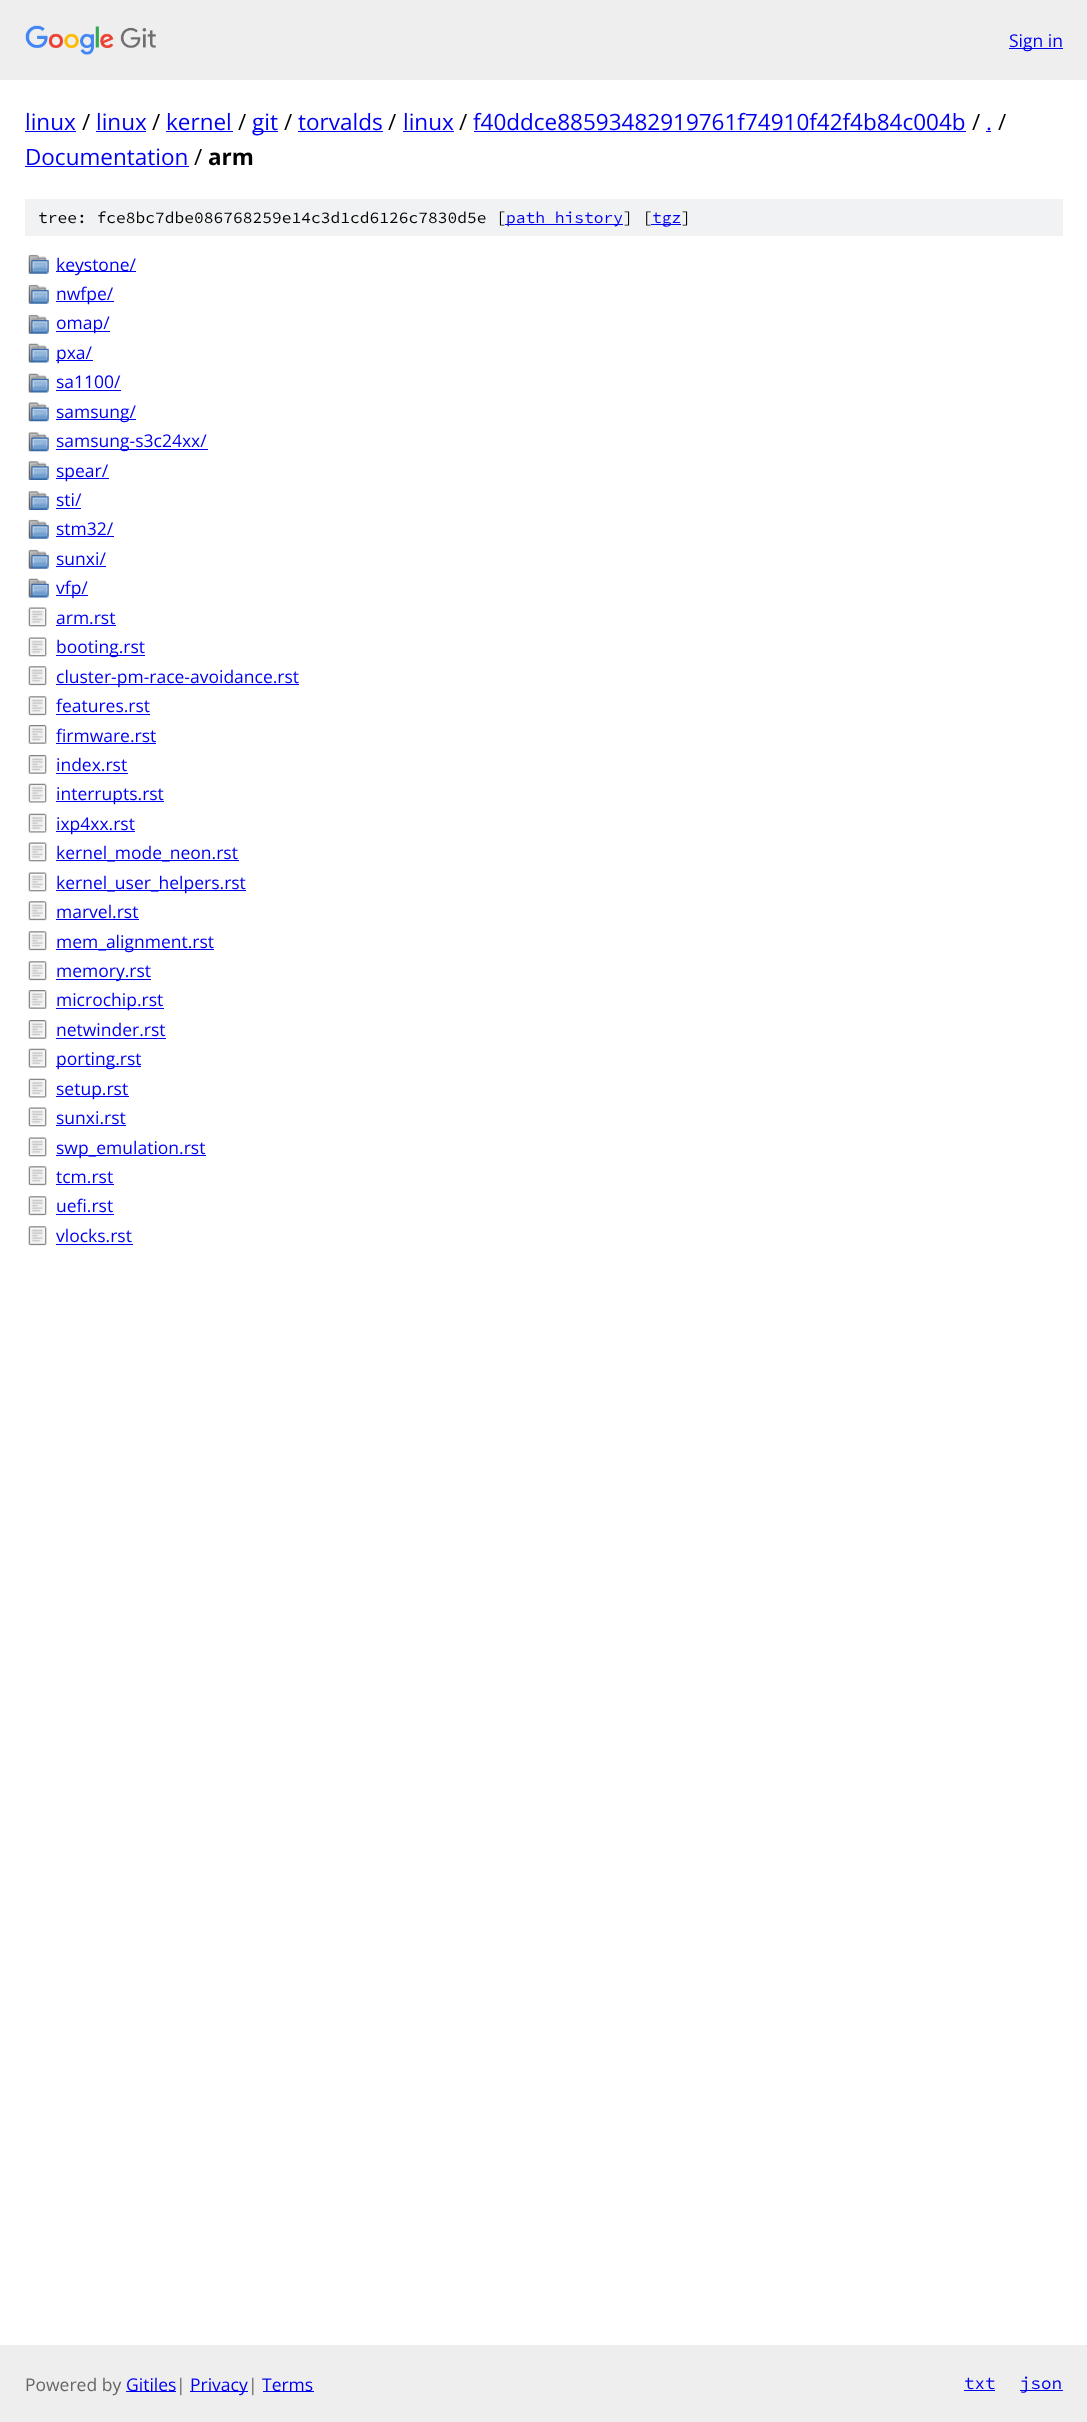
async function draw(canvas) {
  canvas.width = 1087
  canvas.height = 2422
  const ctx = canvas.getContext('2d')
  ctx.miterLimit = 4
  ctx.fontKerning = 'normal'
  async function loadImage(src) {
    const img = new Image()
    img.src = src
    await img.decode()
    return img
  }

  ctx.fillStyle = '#fff'
  ctx.fillRect(0, 0, 1087, 2422)
  ctx.fillStyle = '#eee'
  ctx.fillRect(0, 0, 1087, 80)
  ctx.drawImage(await loadImage('image0.png'), 25, 25, 131, 30)
  ctx.fillStyle = '#00e'
  ctx.fillRect(1009, 48, 54, 1)
  ctx.font = '17.5px Open Sans'
  ctx.fillText('Sign in', 1009, 47)
  ctx.font = '22.5px Open Sans'
  ctx.fillText('linux', 25, 130)
  ctx.fillRect(25, 131, 51, 1)
  ctx.fillStyle = '#000'
  ctx.fillText('/', 82, 130)
  ctx.fillStyle = '#00e'
  ctx.fillText('linux', 96, 130)
  ctx.fillRect(96, 131, 50, 1)
  ctx.fillStyle = '#000'
  ctx.fillText('/', 152, 130)
  ctx.fillStyle = '#00e'
  ctx.fillText('kernel', 166, 130)
  ctx.fillRect(166, 131, 67, 1)
  ctx.fillStyle = '#000'
  ctx.fillText('/', 238, 130)
  ctx.fillStyle = '#00e'
  ctx.fillRect(253, 131, 25, 1)
  ctx.fillText('git', 252, 130)
  ctx.fillStyle = '#000'
  ctx.fillText('/', 284, 130)
  ctx.fillStyle = '#00e'
  ctx.fillText('torvalds', 298, 130)
  ctx.fillRect(298, 131, 85, 1)
  ctx.fillStyle = '#000'
  ctx.fillText('/', 388, 130)
  ctx.fillStyle = '#00e'
  ctx.fillText('linux', 403, 130)
  ctx.fillRect(403, 131, 51, 1)
  ctx.fillStyle = '#000'
  ctx.fillText('/', 459, 130)
  ctx.fillStyle = '#00e'
  ctx.fillText('f40ddce88593482919761f74910f42f4b84c004b', 473, 130)
  ctx.fillRect(474, 131, 492, 1)
  ctx.fillStyle = '#000'
  ctx.fillText('/', 972, 130)
  ctx.fillStyle = '#00e'
  ctx.fillText('.', 986, 130)
  ctx.fillRect(986, 131, 5, 1)
  ctx.fillStyle = '#000'
  ctx.fillText('/', 998, 130)
  ctx.fillStyle = '#00e'
  ctx.fillText('Documentation', 25, 165)
  ctx.fillRect(25, 166, 164, 1)
  ctx.fillStyle = '#000'
  ctx.fillText('/', 194, 165)
  ctx.font = 'bold 22.5px Open Sans'
  ctx.fillText('arm', 208, 165)
  ctx.fillStyle = '#f1f2f3'
  ctx.fillRect(25, 199, 1038, 37)
  ctx.font = '200 16.25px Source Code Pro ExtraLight'
  ctx.fillStyle = '#000'
  ctx.fillText('tree: fce8bc7dbe086768259e14c3d1cd6126c7830d5e [', 38, 223)
  ctx.fillStyle = '#00e'
  ctx.fillRect(505, 224, 118, 1)
  ctx.fillText('path history', 506, 223)
  ctx.fillStyle = '#000'
  ctx.fillText('] [', 623, 223)
  ctx.fillStyle = '#00e'
  ctx.fillRect(651, 224, 30, 1)
  ctx.fillText('tgz', 652, 223)
  ctx.fillStyle = '#000'
  ctx.fillText(']', 681, 223)
  ctx.drawImage(await loadImage('image1.png'), 28, 254, 21, 20)
  ctx.fillStyle = '#00e'
  ctx.fillRect(56, 271, 80, 1)
  ctx.font = '17.5px Open Sans'
  ctx.fillText('keystone/', 56, 271)
  ctx.drawImage(await loadImage('image2.png'), 28, 284, 21, 20)
  ctx.fillRect(56, 301, 58, 1)
  ctx.fillText('nwfpe/', 56, 300)
  ctx.drawImage(await loadImage('image1.png'), 28, 314, 21, 20)
  ctx.fillRect(56, 331, 54, 1)
  ctx.fillText('omap/', 56, 329)
  ctx.drawImage(await loadImage('image3.png'), 28, 343, 21, 20)
  ctx.fillRect(56, 360, 37, 1)
  ctx.fillText('pxa/', 56, 359)
  ctx.drawImage(await loadImage('image3.png'), 28, 373, 21, 20)
  ctx.fillText('sa1100/', 56, 388)
  ctx.fillRect(56, 390, 65, 1)
  ctx.drawImage(await loadImage('image4.png'), 28, 402, 21, 20)
  ctx.fillRect(56, 419, 80, 1)
  ctx.fillText('samsung/', 56, 418)
  ctx.drawImage(await loadImage('image4.png'), 28, 432, 21, 20)
  ctx.fillRect(56, 449, 152, 1)
  ctx.fillText('samsung-s3c24xx/', 56, 447)
  ctx.drawImage(await loadImage('image5.png'), 28, 461, 21, 19)
  ctx.fillRect(56, 478, 53, 1)
  ctx.fillText('spear/', 56, 477)
  ctx.drawImage(await loadImage('image5.png'), 28, 491, 21, 19)
  ctx.fillText('sti/', 56, 506)
  ctx.fillRect(56, 508, 25, 1)
  ctx.drawImage(await loadImage('image1.png'), 28, 519, 21, 20)
  ctx.fillText('stm32/', 56, 535)
  ctx.fillRect(56, 536, 58, 1)
  ctx.drawImage(await loadImage('image1.png'), 28, 549, 21, 20)
  ctx.fillText('sunxi/', 56, 565)
  ctx.fillRect(56, 566, 50, 1)
  ctx.drawImage(await loadImage('image6.png'), 28, 578, 21, 20)
  ctx.fillRect(56, 595, 32, 1)
  ctx.fillText('vfp/', 56, 594)
  ctx.drawImage(await loadImage('image7.png'), 28, 607, 19, 20)
  ctx.fillText('arm.rst', 56, 624)
  ctx.fillRect(56, 625, 60, 1)
  ctx.drawImage(await loadImage('image7.png'), 28, 637, 19, 20)
  ctx.fillRect(56, 655, 89, 1)
  ctx.fillText('booting.rst', 56, 653)
  ctx.drawImage(await loadImage('image8.png'), 28, 666, 19, 20)
  ctx.fillRect(56, 684, 243, 1)
  ctx.fillText('cluster-pm-race-avoidance.rst', 56, 683)
  ctx.drawImage(await loadImage('image8.png'), 28, 696, 19, 20)
  ctx.fillText('features.rst', 56, 712)
  ctx.fillRect(56, 714, 94, 1)
  ctx.drawImage(await loadImage('image9.png'), 28, 725, 19, 19)
  ctx.fillText('firmware.rst', 56, 742)
  ctx.fillRect(56, 743, 100, 1)
  ctx.drawImage(await loadImage('image9.png'), 28, 755, 19, 19)
  ctx.fillText('index.rst', 56, 771)
  ctx.fillRect(56, 773, 72, 1)
  ctx.drawImage(await loadImage('image10.png'), 28, 783, 19, 20)
  ctx.fillRect(56, 801, 108, 1)
  ctx.fillText('interrupts.rst', 56, 800)
  ctx.drawImage(await loadImage('image10.png'), 28, 813, 19, 20)
  ctx.fillRect(56, 831, 79, 1)
  ctx.fillText('ixp4xx.rst', 56, 830)
  ctx.drawImage(await loadImage('image7.png'), 28, 842, 19, 20)
  ctx.fillRect(56, 860, 183, 1)
  ctx.fillText('kernel_mode_neon.rst', 56, 859)
  ctx.drawImage(await loadImage('image7.png'), 28, 872, 19, 20)
  ctx.fillRect(56, 890, 190, 1)
  ctx.fillText('kernel_user_helpers.rst', 56, 889)
  ctx.drawImage(await loadImage('image8.png'), 28, 901, 19, 20)
  ctx.fillText('marvel.rst', 56, 918)
  ctx.fillRect(56, 919, 83, 1)
  ctx.drawImage(await loadImage('image8.png'), 28, 931, 19, 20)
  ctx.fillRect(56, 949, 158, 1)
  ctx.fillText('mem_alignment.rst', 56, 948)
  ctx.drawImage(await loadImage('image8.png'), 28, 961, 19, 20)
  ctx.fillRect(56, 979, 95, 1)
  ctx.fillText('memory.rst', 56, 977)
  ctx.drawImage(await loadImage('image9.png'), 28, 990, 19, 19)
  ctx.fillRect(56, 1008, 108, 1)
  ctx.fillText('microchip.rst', 56, 1006)
  ctx.drawImage(await loadImage('image9.png'), 28, 1020, 19, 19)
  ctx.fillText('netwinder.rst', 56, 1036)
  ctx.fillRect(56, 1038, 110, 1)
  ctx.drawImage(await loadImage('image10.png'), 28, 1048, 19, 20)
  ctx.fillRect(56, 1066, 85, 1)
  ctx.fillText('porting.rst', 56, 1065)
  ctx.drawImage(await loadImage('image10.png'), 28, 1078, 19, 20)
  ctx.fillRect(56, 1096, 73, 1)
  ctx.fillText('setup.rst', 56, 1095)
  ctx.drawImage(await loadImage('image7.png'), 28, 1107, 19, 20)
  ctx.fillText('sunxi.rst', 56, 1124)
  ctx.fillRect(56, 1125, 70, 1)
  ctx.drawImage(await loadImage('image7.png'), 28, 1137, 19, 20)
  ctx.fillRect(56, 1155, 150, 1)
  ctx.fillText('swp_emulation.rst', 56, 1154)
  ctx.drawImage(await loadImage('image11.png'), 28, 1166, 19, 20)
  ctx.fillText('tcm.rst', 56, 1183)
  ctx.fillRect(56, 1184, 58, 1)
  ctx.drawImage(await loadImage('image8.png'), 28, 1196, 19, 20)
  ctx.fillText('uefi.rst', 56, 1212)
  ctx.fillRect(56, 1214, 58, 1)
  ctx.drawImage(await loadImage('image8.png'), 28, 1226, 19, 20)
  ctx.fillText('vlocks.rst', 56, 1242)
  ctx.fillRect(56, 1244, 77, 1)
  ctx.fillStyle = '#eee'
  ctx.fillRect(0, 2345, 1087, 77)
  ctx.fillStyle = '#666'
  ctx.fillText('Powered by', 25, 2391)
  ctx.fillStyle = '#00e'
  ctx.fillRect(126, 2391, 50, 1)
  ctx.fillText('Gitiles', 126, 2391)
  ctx.fillStyle = '#666'
  ctx.fillText('|', 176, 2391)
  ctx.fillStyle = '#00e'
  ctx.fillRect(190, 2391, 58, 1)
  ctx.fillText('Privacy', 190, 2391)
  ctx.fillStyle = '#666'
  ctx.fillText('|', 248, 2391)
  ctx.fillStyle = '#00e'
  ctx.fillRect(263, 2391, 51, 1)
  ctx.fillText('Terms', 262, 2391)
  ctx.font = '200 17.5px Source Code Pro ExtraLight'
  ctx.fillText('txt', 964, 2389)
  ctx.fillRect(964, 2390, 31, 1)
  ctx.fillRect(1020, 2390, 43, 1)
  ctx.fillText('json', 1020, 2389)
}

draw(document.querySelector('canvas'))
